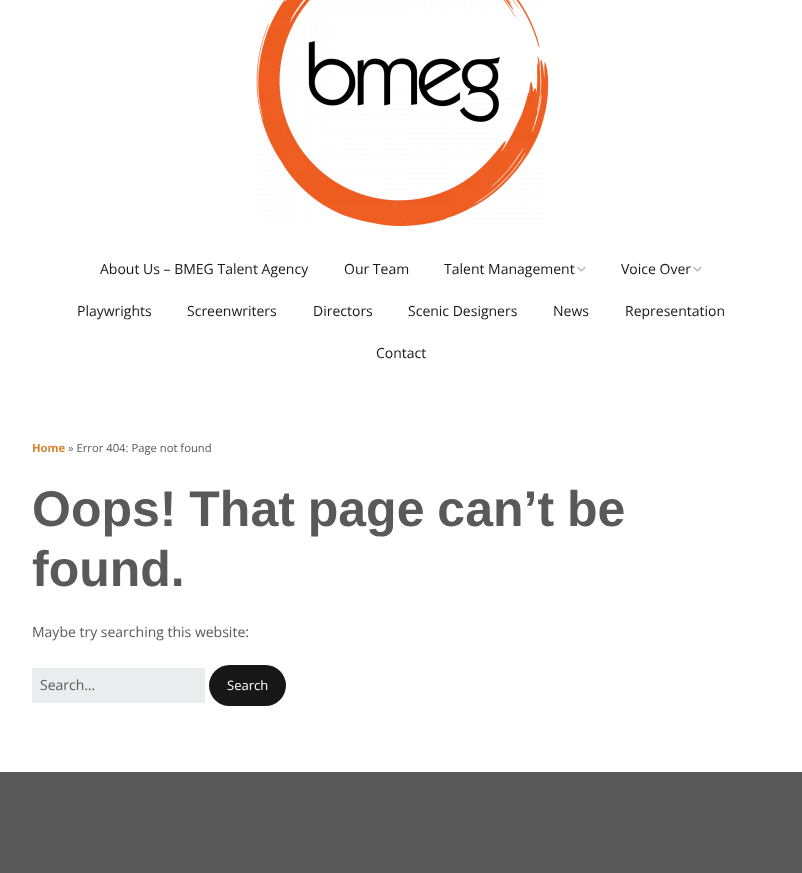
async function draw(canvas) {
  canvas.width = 802
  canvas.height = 873
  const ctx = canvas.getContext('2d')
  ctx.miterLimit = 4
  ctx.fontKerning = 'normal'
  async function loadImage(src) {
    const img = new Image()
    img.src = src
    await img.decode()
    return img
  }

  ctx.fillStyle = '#fff'
  ctx.fillRect(0, 0, 802, 873)
  ctx.drawImage(await loadImage('image0.png'), 256, 0, 293, 227)
  ctx.font = '14px Open Sans'
  ctx.fillStyle = '#171717'
  ctx.fillText('About Us – BMEG Talent Agency', 100, 274)
  ctx.fillText('Our Team', 344, 274)
  ctx.fillText('Talent Management', 444, 274)
  ctx.drawImage(await loadImage('image1.png'), 577, 266, 9, 6)
  ctx.fillText('Voice Over', 621, 274)
  ctx.drawImage(await loadImage('image1.png'), 693, 266, 9, 6)
  ctx.fillText('Playwrights', 77, 316)
  ctx.fillText('Screenwriters', 187, 316)
  ctx.fillText('Directors', 313, 316)
  ctx.fillText('Scenic Designers', 408, 316)
  ctx.fillText('News', 553, 316)
  ctx.fillText('Representation', 625, 316)
  ctx.fillText('Contact', 376, 358)
  ctx.font = 'bold 11.25px Open Sans'
  ctx.fillStyle = '#d68331'
  ctx.fillText('Home', 32, 452)
  ctx.font = '11.25px Open Sans'
  ctx.fillStyle = '#595959'
  ctx.fillText('» Error 404: Page not found', 68, 452)
  ctx.wordSpacing = '-1px'
  ctx.font = 'bold 50px Liberation Sans'
  ctx.fillText('Oops! That page can’t be', 32, 526)
  ctx.wordSpacing = '0px'
  ctx.fillText('found.', 32, 586)
  ctx.font = '14px Open Sans'
  ctx.fillText('Maybe try searching this website:', 32, 637)
  ctx.fillStyle = '#eaecee'
  ctx.fillRect(32, 668, 173, 35)
  ctx.fillStyle = '#595959'
  ctx.fillText('Search…', 40, 690)
  ctx.fillStyle = '#171717'
  ctx.beginPath()
  ctx.roundRect(209, 665, 77, 41, 20.5)
  ctx.fill()
  ctx.font = '13px Open Sans'
  ctx.fillStyle = '#fff'
  ctx.fillText('Search', 227, 690)
  ctx.fillStyle = '#595959'
  ctx.fillRect(0, 772, 802, 101)
}

draw(document.querySelector('canvas'))
